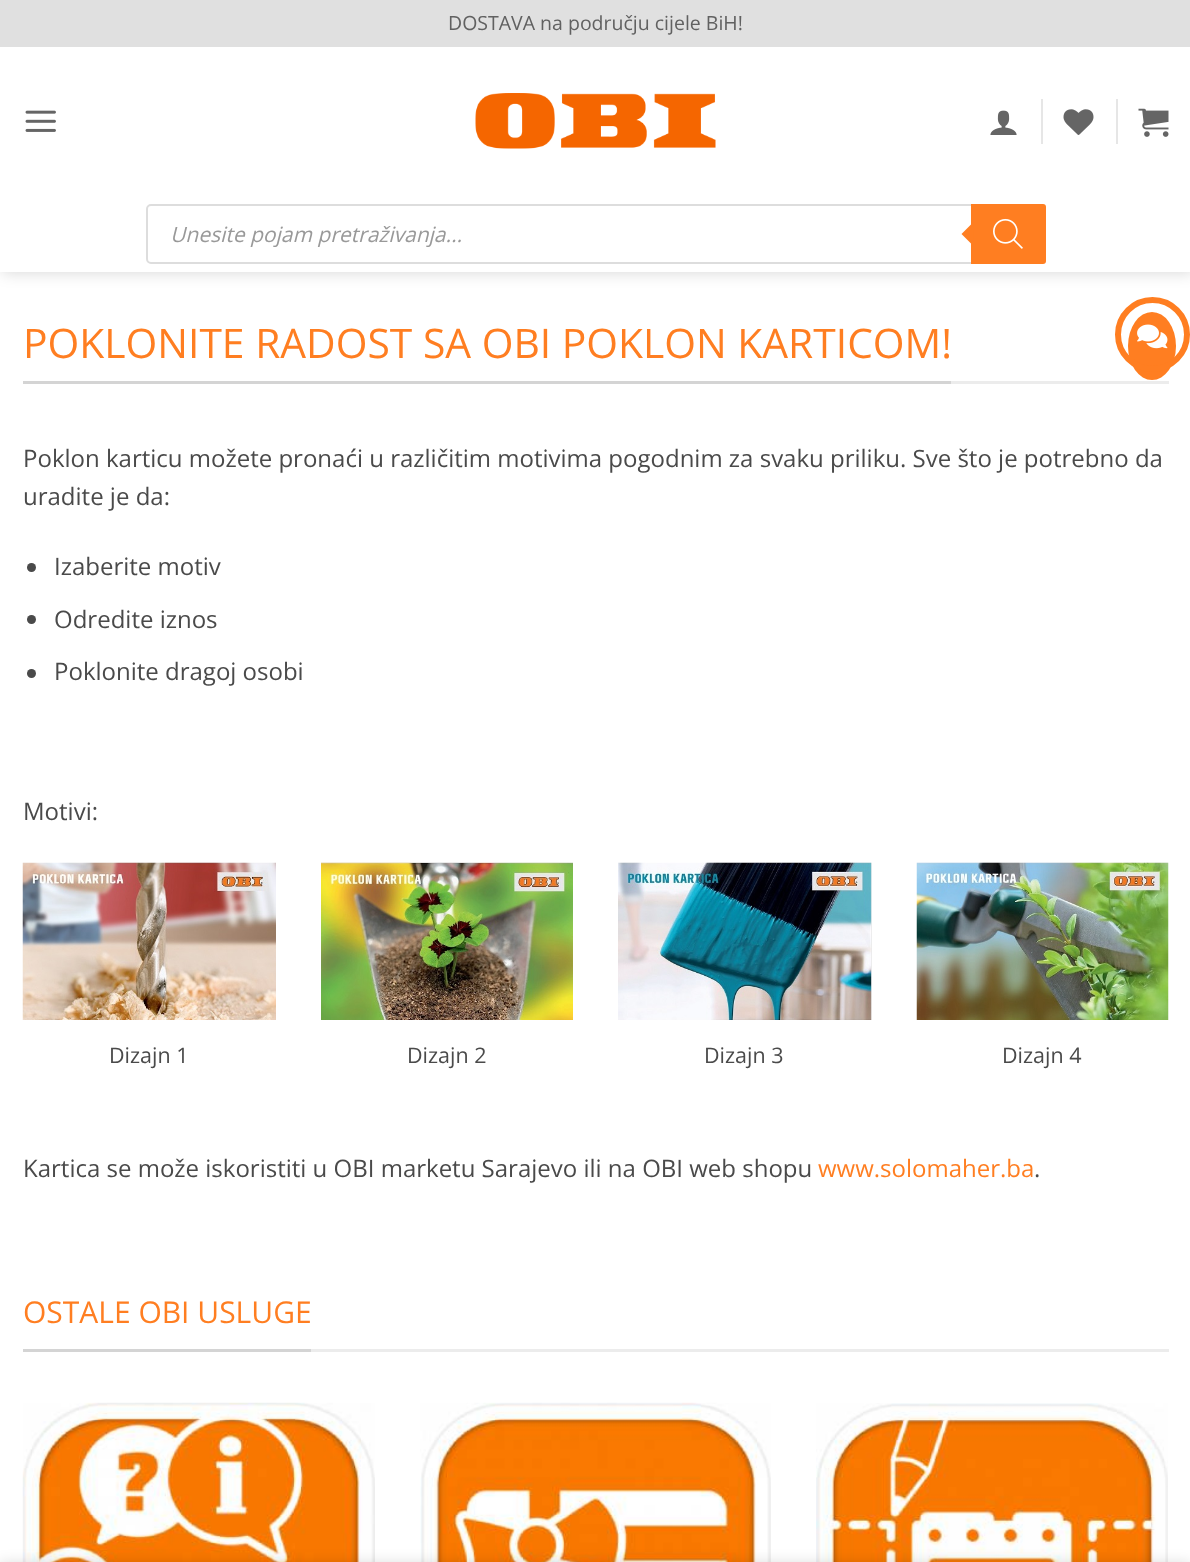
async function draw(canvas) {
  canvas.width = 1190
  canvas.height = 1562
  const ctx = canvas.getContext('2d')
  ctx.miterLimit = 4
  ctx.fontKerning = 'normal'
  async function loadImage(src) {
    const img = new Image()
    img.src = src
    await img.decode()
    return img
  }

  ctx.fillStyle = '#fff'
  ctx.fillRect(0, 0, 1190, 1562)
  ctx.fillStyle = '#00000026'
  ctx.filter = 'blur(7.5px)'
  ctx.beginPath()
  ctx.rect(2, 2, 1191, 271)
  ctx.fill()
  ctx.filter = 'none'
  ctx.fillStyle = '#e0e0e0'
  ctx.fillRect(0, 0, 1190, 47)
  ctx.font = '19.5px Open Sans'
  ctx.fillStyle = '#616161'
  ctx.fillText('DOSTAVA na području cijele BiH!', 448, 30)
  ctx.fillStyle = '#fff'
  ctx.fillRect(0, 47, 1190, 225)
  ctx.drawImage(await loadImage('image0.png'), 25, 110, 31, 22)
  ctx.drawImage(await loadImage('image1.png'), 475, 93, 241, 56)
  ctx.drawImage(await loadImage('image2.png'), 990, 110, 27, 25)
  ctx.fillStyle = '#e6e6e6'
  ctx.fillRect(1041, 99, 2, 45)
  ctx.drawImage(await loadImage('image3.png'), 1063, 109, 31, 26)
  ctx.fillRect(1116, 99, 2, 45)
  ctx.drawImage(await loadImage('image4.png'), 1138, 108, 31, 29)
  ctx.beginPath()
  ctx.roundRect(147, 205, 898, 58, 4)
  ctx.strokeStyle = '#ddd'
  ctx.lineWidth = 2
  ctx.stroke()
  ctx.font = 'italic 21px Open Sans'
  ctx.fillStyle = '#999'
  ctx.fillText('Unesite pojam pretraživanja...', 170, 242)
  ctx.fillStyle = '#ff7e21'
  ctx.beginPath()
  ctx.roundRect(971, 204, 75, 60, [0, 3, 3, 0])
  ctx.fill()
  ctx.beginPath()
  ctx.moveTo(973.5, 222)
  ctx.lineTo(973.5, 246)
  ctx.lineTo(961.5, 234)
  ctx.closePath()
  ctx.fill()
  ctx.drawImage(await loadImage('image5.png'), 993, 218, 30, 31)
  ctx.fillStyle = '#ececec'
  ctx.fillRect(951, 381, 218, 3)
  ctx.fillStyle = '#d4d4d4'
  ctx.fillRect(23, 381, 928, 3)
  ctx.font = '40.8px Open Sans'
  ctx.fillStyle = '#ff7e21'
  ctx.fillText('POKLONITE RADOST SA OBI POKLON KARTICOM!', 23, 358)
  ctx.font = '24px Open Sans'
  ctx.fillStyle = '#4a4a4a'
  ctx.fillText('Poklon karticu možete pronaći u različitim motivima pogodnim za svaku priliku. Sve što je potrebno da', 23, 467)
  ctx.fillText('uradite je da:', 23, 505)
  ctx.beginPath()
  ctx.arc(31.5, 567.5, 4.5, 0, 2 * Math.PI)
  ctx.fill()
  ctx.fillText('Izaberite motiv', 54, 575)
  ctx.beginPath()
  ctx.arc(31.5, 619.5, 4.5, 0, 2 * Math.PI)
  ctx.fill()
  ctx.fillText('Odredite iznos', 54, 628)
  ctx.beginPath()
  ctx.arc(31.5, 673.5, 4.5, 0, 2 * Math.PI)
  ctx.fill()
  ctx.fillText('Poklonite dragoj osobi', 54, 680)
  ctx.fillText('Motivi:', 23, 820)
  ctx.drawImage(await loadImage('image6.png'), 22, 862, 254, 158)
  ctx.font = '21.5px Open Sans'
  ctx.fillText('Dizajn 1', 109, 1063)
  ctx.drawImage(await loadImage('image7.png'), 321, 862, 252, 158)
  ctx.fillText('Dizajn 2', 407, 1063)
  ctx.drawImage(await loadImage('image8.png'), 618, 862, 254, 158)
  ctx.fillText('Dizajn 3', 704, 1063)
  ctx.drawImage(await loadImage('image9.png'), 916, 862, 253, 158)
  ctx.fillText('Dizajn 4', 1002, 1063)
  ctx.font = '24px Open Sans'
  ctx.fillText('Kartica se može iskoristiti u OBI marketu Sarajevo ili na OBI web shopu', 23, 1177)
  ctx.fillStyle = '#ff7e21'
  ctx.fillText('www.solomaher.ba', 818, 1177)
  ctx.fillStyle = '#4a4a4a'
  ctx.fillText('.', 1034, 1177)
  ctx.fillStyle = '#ececec'
  ctx.fillRect(311, 1349, 858, 3)
  ctx.fillStyle = '#d4d4d4'
  ctx.fillRect(23, 1349, 288, 3)
  ctx.font = '30px Open Sans'
  ctx.fillStyle = '#ff7e21'
  ctx.fillText('OSTALE OBI USLUGE', 23, 1323)
  ctx.drawImage(await loadImage('image10.png'), 22, 1402, 353, 160)
  ctx.drawImage(await loadImage('image11.png'), 420, 1402, 351, 160)
  ctx.drawImage(await loadImage('image12.png'), 816, 1403, 352, 159)
  ctx.beginPath()
  ctx.ellipse(1152, 346, 24, 34, 0, 0, 2 * Math.PI)
  ctx.fill()
  ctx.drawImage(await loadImage('image13.png'), 1137, 324, 31, 25)
  ctx.beginPath()
  ctx.arc(1152.5, 334.5, 34.5, 0, 2 * Math.PI)
  ctx.strokeStyle = '#ff7e21'
  ctx.lineWidth = 6
  ctx.stroke()
  ctx.fillStyle = '#00000024'
  ctx.filter = 'blur(7px)'
  ctx.beginPath()
  ctx.rect(0, 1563, 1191, 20)
  ctx.fill()
  ctx.filter = 'none'
}

draw(document.querySelector('canvas'))
